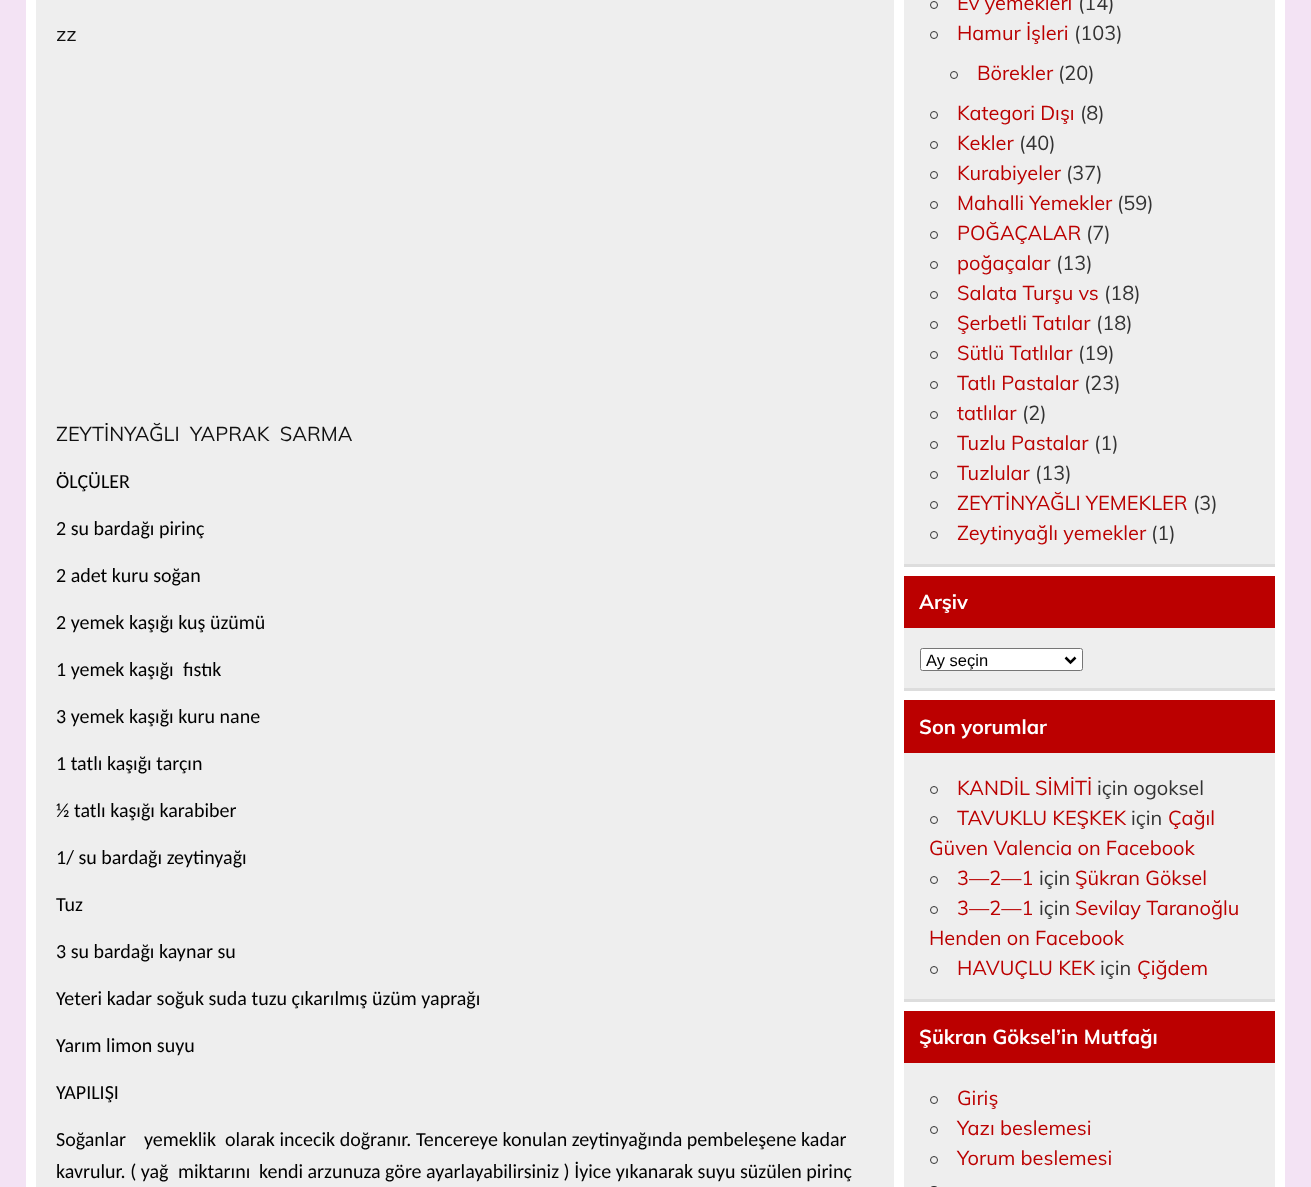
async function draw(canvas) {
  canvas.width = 1311
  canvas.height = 1187
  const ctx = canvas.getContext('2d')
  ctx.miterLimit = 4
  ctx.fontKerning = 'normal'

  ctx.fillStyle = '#f3e3f4'
  ctx.fillRect(0, 0, 1311, 1187)
  ctx.fillStyle = '#fff'
  ctx.fillRect(26, 0, 1259, 1187)
  ctx.fillStyle = '#eee'
  ctx.fillRect(36, 0, 858, 1187)
  ctx.font = '20px Muli'
  ctx.fillStyle = '#111'
  ctx.fillText('zz', 56, 41)
  ctx.fillText('ZEYTİNYAĞLI  YAPRAK  SARMA', 56, 441)
  ctx.font = '20px Carlito'
  ctx.fillStyle = '#000'
  ctx.fillText('ÖLÇÜLER', 56, 488)
  ctx.fillText('2 su bardağı pirinç', 56, 535)
  ctx.fillText('2 adet kuru soğan', 56, 582)
  ctx.fillText('2 yemek kaşığı kuş üzümü', 56, 629)
  ctx.fillText('1 yemek kaşığı', 56, 676)
  ctx.fillText('fıstık', 183, 676)
  ctx.fillText('3 yemek kaşığı kuru nane', 56, 723)
  ctx.fillText('1 tatlı kaşığı tarçın', 56, 770)
  ctx.fillText('½ tatlı kaşığı karabiber', 56, 817)
  ctx.fillText('1/ su bardağı zeytinyağı', 56, 864)
  ctx.fillText('Tuz', 56, 911)
  ctx.fillText('3 su bardağı kaynar su', 56, 958)
  ctx.fillText('Yeteri kadar soğuk suda tuzu çıkarılmış üzüm yaprağı', 56, 1005)
  ctx.fillText('Yarım limon suyu', 56, 1052)
  ctx.fillText('YAPILIŞI', 56, 1099)
  ctx.fillText('Soğanlar', 56, 1146)
  ctx.fillText('yemeklik', 144, 1146)
  ctx.fillText('olarak incecik doğranır. Tencereye konulan zeytinyağında pembeleşene kadar', 225, 1146)
  ctx.fillText('kavrulur. ( yağ', 56, 1178)
  ctx.fillText('miktarını', 178, 1178)
  ctx.fillText('kendi arzunuza göre ayarlayabilirsiniz ) İyice yıkanarak suyu süzülen pirinç', 259, 1178)
  ctx.fillStyle = '#eee'
  ctx.fillRect(904, 0, 371, 564)
  ctx.fillStyle = '#ddd'
  ctx.fillRect(904, 564, 371, 3)
  ctx.beginPath()
  ctx.arc(934, 5, 3.5, 0, 2 * Math.PI)
  ctx.strokeStyle = '#333'
  ctx.stroke()
  ctx.font = '20px Muli'
  ctx.fillStyle = '#b00'
  ctx.fillText('Ev yemekleri', 957, 10)
  ctx.fillStyle = '#333'
  ctx.fillText('(14)', 1078, 10)
  ctx.beginPath()
  ctx.arc(934, 35, 3.5, 0, 2 * Math.PI)
  ctx.stroke()
  ctx.fillStyle = '#b00'
  ctx.fillText('Hamur İşleri', 957, 40)
  ctx.fillStyle = '#333'
  ctx.fillText('(103)', 1074, 40)
  ctx.beginPath()
  ctx.arc(954, 75, 3.5, 0, 2 * Math.PI)
  ctx.stroke()
  ctx.fillStyle = '#b00'
  ctx.fillText('Börekler', 977, 80)
  ctx.fillStyle = '#333'
  ctx.fillText('(20)', 1058, 80)
  ctx.beginPath()
  ctx.arc(934, 115, 3.5, 0, 2 * Math.PI)
  ctx.stroke()
  ctx.fillStyle = '#b00'
  ctx.fillText('Kategori Dışı', 957, 120)
  ctx.fillStyle = '#333'
  ctx.fillText('(8)', 1080, 120)
  ctx.beginPath()
  ctx.arc(934, 145, 3.5, 0, 2 * Math.PI)
  ctx.stroke()
  ctx.fillStyle = '#b00'
  ctx.fillText('Kekler', 957, 150)
  ctx.fillStyle = '#333'
  ctx.fillText('(40)', 1019, 150)
  ctx.beginPath()
  ctx.arc(934, 175, 3.5, 0, 2 * Math.PI)
  ctx.stroke()
  ctx.fillStyle = '#b00'
  ctx.fillText('Kurabiyeler', 957, 180)
  ctx.fillStyle = '#333'
  ctx.fillText('(37)', 1066, 180)
  ctx.beginPath()
  ctx.arc(934, 205, 3.5, 0, 2 * Math.PI)
  ctx.stroke()
  ctx.fillStyle = '#b00'
  ctx.fillText('Mahalli Yemekler', 957, 210)
  ctx.fillStyle = '#333'
  ctx.fillText('(59)', 1117, 210)
  ctx.beginPath()
  ctx.arc(934, 235, 3.5, 0, 2 * Math.PI)
  ctx.stroke()
  ctx.fillStyle = '#b00'
  ctx.fillText('POĞAÇALAR', 957, 240)
  ctx.fillStyle = '#333'
  ctx.fillText('(7)', 1086, 240)
  ctx.beginPath()
  ctx.arc(934, 265, 3.5, 0, 2 * Math.PI)
  ctx.stroke()
  ctx.fillStyle = '#b00'
  ctx.fillText('poğaçalar', 957, 270)
  ctx.fillStyle = '#333'
  ctx.fillText('(13)', 1056, 270)
  ctx.beginPath()
  ctx.arc(934, 295, 3.5, 0, 2 * Math.PI)
  ctx.stroke()
  ctx.fillStyle = '#b00'
  ctx.fillText('Salata Turşu vs', 957, 300)
  ctx.fillStyle = '#333'
  ctx.fillText('(18)', 1104, 300)
  ctx.beginPath()
  ctx.arc(934, 325, 3.5, 0, 2 * Math.PI)
  ctx.stroke()
  ctx.fillStyle = '#b00'
  ctx.fillText('Şerbetli Tatılar', 957, 330)
  ctx.fillStyle = '#333'
  ctx.fillText('(18)', 1096, 330)
  ctx.beginPath()
  ctx.arc(934, 355, 3.5, 0, 2 * Math.PI)
  ctx.stroke()
  ctx.fillStyle = '#b00'
  ctx.fillText('Sütlü Tatlılar', 957, 360)
  ctx.fillStyle = '#333'
  ctx.fillText('(19)', 1078, 360)
  ctx.beginPath()
  ctx.arc(934, 385, 3.5, 0, 2 * Math.PI)
  ctx.stroke()
  ctx.fillStyle = '#b00'
  ctx.fillText('Tatlı Pastalar', 957, 390)
  ctx.fillStyle = '#333'
  ctx.fillText('(23)', 1084, 390)
  ctx.beginPath()
  ctx.arc(934, 415, 3.5, 0, 2 * Math.PI)
  ctx.stroke()
  ctx.fillStyle = '#b00'
  ctx.fillText('tatlılar', 957, 420)
  ctx.fillStyle = '#333'
  ctx.fillText('(2)', 1022, 420)
  ctx.beginPath()
  ctx.arc(934, 445, 3.5, 0, 2 * Math.PI)
  ctx.stroke()
  ctx.fillStyle = '#b00'
  ctx.fillText('Tuzlu Pastalar', 957, 450)
  ctx.fillStyle = '#333'
  ctx.fillText('(1)', 1094, 450)
  ctx.beginPath()
  ctx.arc(934, 475, 3.5, 0, 2 * Math.PI)
  ctx.stroke()
  ctx.fillStyle = '#b00'
  ctx.fillText('Tuzlular', 957, 480)
  ctx.fillStyle = '#333'
  ctx.fillText('(13)', 1035, 480)
  ctx.beginPath()
  ctx.arc(934, 505, 3.5, 0, 2 * Math.PI)
  ctx.stroke()
  ctx.fillStyle = '#b00'
  ctx.fillText('ZEYTİNYAĞLI YEMEKLER', 957, 510)
  ctx.fillStyle = '#333'
  ctx.fillText('(3)', 1193, 510)
  ctx.beginPath()
  ctx.arc(934, 535, 3.5, 0, 2 * Math.PI)
  ctx.stroke()
  ctx.fillStyle = '#b00'
  ctx.fillText('Zeytinyağlı yemekler', 957, 540)
  ctx.fillStyle = '#333'
  ctx.fillText('(1)', 1151, 540)
  ctx.fillStyle = '#eee'
  ctx.fillRect(904, 628, 371, 60)
  ctx.fillStyle = '#ddd'
  ctx.fillRect(904, 688, 371, 3)
  ctx.fillStyle = '#b00'
  ctx.fillRect(904, 576, 371, 52)
  ctx.font = 'bold 20px Muli'
  ctx.fillStyle = '#fff'
  ctx.fillText('Arşiv', 919, 609)
  ctx.beginPath()
  ctx.roundRect(920.5, 648.5, 162, 22, 2)
  ctx.fill()
  ctx.strokeStyle = '#767676'
  ctx.stroke()
  ctx.beginPath()
  ctx.moveTo(1065.5, 657.5)
  ctx.lineTo(1070.5, 662.5)
  ctx.lineTo(1075.5, 657.5)
  ctx.strokeStyle = '#000'
  ctx.lineWidth = 2.5
  ctx.stroke()
  ctx.font = '16.5px Liberation Sans'
  ctx.fillStyle = '#000'
  ctx.fillText('Ay seçin', 926, 666)
  ctx.fillStyle = '#eee'
  ctx.fillRect(904, 753, 371, 246)
  ctx.fillStyle = '#ddd'
  ctx.fillRect(904, 999, 371, 3)
  ctx.fillStyle = '#b00'
  ctx.fillRect(904, 700, 371, 53)
  ctx.font = 'bold 20px Muli'
  ctx.fillStyle = '#fff'
  ctx.fillText('Son yorumlar', 919, 734)
  ctx.beginPath()
  ctx.arc(934, 790, 3.5, 0, 2 * Math.PI)
  ctx.strokeStyle = '#333'
  ctx.lineWidth = 1
  ctx.stroke()
  ctx.font = '20px Muli'
  ctx.fillStyle = '#b00'
  ctx.fillText('KANDİL SİMİTİ', 957, 795)
  ctx.fillStyle = '#333'
  ctx.fillText('için ogoksel', 1097, 795)
  ctx.beginPath()
  ctx.arc(934, 820, 3.5, 0, 2 * Math.PI)
  ctx.stroke()
  ctx.fillStyle = '#b00'
  ctx.fillText('TAVUKLU KEŞKEK', 957, 825)
  ctx.fillStyle = '#333'
  ctx.fillText('için', 1131, 825)
  ctx.fillStyle = '#b00'
  ctx.fillText('Çağıl', 1168, 825)
  ctx.fillText('Güven Valencia on Facebook', 929, 855)
  ctx.beginPath()
  ctx.arc(934, 880, 3.5, 0, 2 * Math.PI)
  ctx.stroke()
  ctx.fillText('3—2—1', 957, 885)
  ctx.fillStyle = '#333'
  ctx.fillText('için', 1039, 885)
  ctx.fillStyle = '#b00'
  ctx.fillText('Şükran Göksel', 1075, 885)
  ctx.beginPath()
  ctx.arc(934, 910, 3.5, 0, 2 * Math.PI)
  ctx.stroke()
  ctx.fillText('3—2—1', 957, 915)
  ctx.fillStyle = '#333'
  ctx.fillText('için', 1039, 915)
  ctx.fillStyle = '#b00'
  ctx.fillText('Sevilay Taranoğlu', 1075, 915)
  ctx.fillText('Henden on Facebook', 929, 945)
  ctx.beginPath()
  ctx.arc(934, 970, 3.5, 0, 2 * Math.PI)
  ctx.stroke()
  ctx.fillText('HAVUÇLU KEK', 957, 975)
  ctx.fillStyle = '#333'
  ctx.fillText('için', 1100, 975)
  ctx.fillStyle = '#b00'
  ctx.fillText('Çiğdem', 1137, 975)
  ctx.fillStyle = '#eee'
  ctx.fillRect(904, 1063, 371, 124)
  ctx.fillStyle = '#b00'
  ctx.fillRect(904, 1011, 371, 52)
  ctx.font = 'bold 20px Muli'
  ctx.fillStyle = '#fff'
  ctx.fillText('Şükran Göksel’in Mutfağı', 919, 1044)
  ctx.beginPath()
  ctx.arc(934, 1100, 3.5, 0, 2 * Math.PI)
  ctx.stroke()
  ctx.font = '20px Muli'
  ctx.fillStyle = '#b00'
  ctx.fillText('Giriş', 957, 1105)
  ctx.beginPath()
  ctx.arc(934, 1130, 3.5, 0, 2 * Math.PI)
  ctx.stroke()
  ctx.fillText('Yazı beslemesi', 957, 1135)
  ctx.beginPath()
  ctx.arc(934, 1160, 3.5, 0, 2 * Math.PI)
  ctx.stroke()
  ctx.fillText('Yorum beslemesi', 957, 1165)
  ctx.beginPath()
  ctx.roundRect(930.5, 1186.5, 7, 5, 3.5)
  ctx.stroke()
}

draw(document.querySelector('canvas'))
